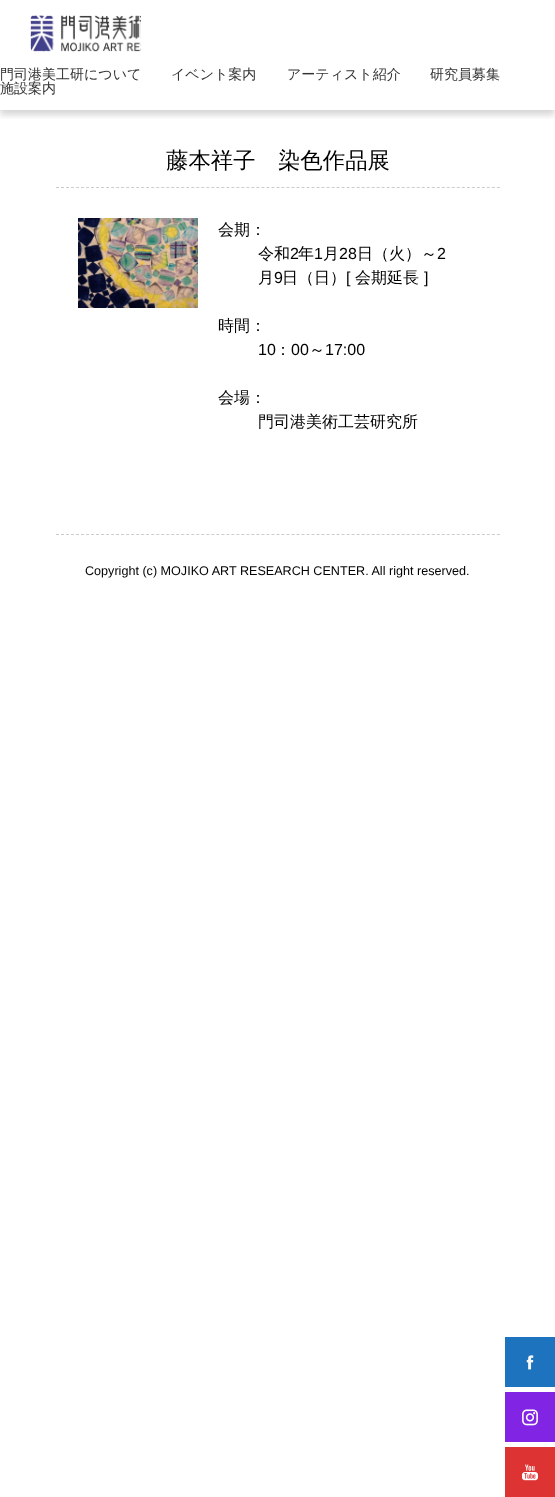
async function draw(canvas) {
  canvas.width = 555
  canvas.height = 1497
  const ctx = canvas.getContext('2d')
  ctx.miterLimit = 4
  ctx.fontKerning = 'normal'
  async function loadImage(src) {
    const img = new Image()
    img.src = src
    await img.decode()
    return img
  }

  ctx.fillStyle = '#fff'
  ctx.fillRect(0, 0, 555, 1497)
  ctx.save()
  ctx.beginPath()
  ctx.rect(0, 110, 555, 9)
  ctx.clip()
  ctx.fillStyle = '#33333333'
  ctx.filter = 'blur(3px)'
  ctx.beginPath()
  ctx.rect(0, 5, 555, 110)
  ctx.fill()
  ctx.filter = 'none'
  ctx.restore()
  ctx.drawImage(await loadImage('image0.png'), 30, 15, 111, 37)
  ctx.font = '500 14px WenQuanYi Zen Hei'
  ctx.fillStyle = '#333'
  ctx.fillText('門司港美工研について', 0, 79)
  ctx.fillText('イベント案内', 171, 79)
  ctx.fillText('アーティスト紹介', 287, 79)
  ctx.fillText('研究員募集', 430, 79)
  ctx.fillText('施設案内', 0, 93)
  ctx.beginPath()
  ctx.moveTo(56, 187.5)
  ctx.lineTo(500, 187.5)
  ctx.strokeStyle = '#ccc'
  ctx.setLineDash([3, 2.01])
  ctx.stroke()
  ctx.font = '500 22.4px WenQuanYi Zen Hei'
  ctx.fillStyle = '#000'
  ctx.fillText('藤本祥子　染色作品展', 166, 168)
  ctx.drawImage(await loadImage('image1.png'), 78, 218, 120, 90)
  ctx.font = '500 16px WenQuanYi Zen Hei'
  ctx.fillText('会期：', 218, 235)
  ctx.fillText('令和', 258, 259)
  ctx.font = '16px Liberation Sans'
  ctx.fillText('2', 290, 259)
  ctx.font = '500 16px WenQuanYi Zen Hei'
  ctx.fillText('年', 298, 259)
  ctx.font = '16px Liberation Sans'
  ctx.fillText('1', 314, 259)
  ctx.font = '500 16px WenQuanYi Zen Hei'
  ctx.fillText('月', 323, 259)
  ctx.font = '16px Liberation Sans'
  ctx.fillText('28', 339, 259)
  ctx.font = '500 16px WenQuanYi Zen Hei'
  ctx.fillText('日（火）～', 357, 259)
  ctx.font = '16px Liberation Sans'
  ctx.fillText('2', 437, 259)
  ctx.font = '500 16px WenQuanYi Zen Hei'
  ctx.fillText('月', 258, 283)
  ctx.font = '16px Liberation Sans'
  ctx.fillText('9', 274, 283)
  ctx.font = '500 16px WenQuanYi Zen Hei'
  ctx.fillText('日（日）', 282, 283)
  ctx.font = '16px Liberation Sans'
  ctx.fillText('[', 346, 283)
  ctx.font = '500 16px WenQuanYi Zen Hei'
  ctx.fillText('会期延長', 355, 283)
  ctx.font = '16px Liberation Sans'
  ctx.fillText(']', 424, 283)
  ctx.font = '500 16px WenQuanYi Zen Hei'
  ctx.fillText('時間：', 218, 331)
  ctx.font = '16px Liberation Sans'
  ctx.fillText('10', 258, 355)
  ctx.font = '500 16px WenQuanYi Zen Hei'
  ctx.fillText('：', 275, 355)
  ctx.font = '16px Liberation Sans'
  ctx.fillText('00', 291, 355)
  ctx.font = '500 16px WenQuanYi Zen Hei'
  ctx.fillText('～', 309, 355)
  ctx.font = '16px Liberation Sans'
  ctx.fillText('17:00', 325, 355)
  ctx.font = '500 16px WenQuanYi Zen Hei'
  ctx.fillText('会場：', 218, 403)
  ctx.fillText('門司港美術工芸研究所', 258, 427)
  ctx.beginPath()
  ctx.moveTo(56, 534.5)
  ctx.lineTo(500, 534.5)
  ctx.stroke()
  ctx.font = '12.6px Liberation Sans'
  ctx.fillText('Copyright (c) MOJIKO ART RESEARCH CENTER. All right reserved.', 85, 575)
  ctx.fillStyle = '#1e73be'
  ctx.fillRect(505, 1337, 50, 50)
  ctx.drawImage(await loadImage('image2.png'), 526, 1355, 8, 15)
  ctx.fillStyle = '#8224e3'
  ctx.fillRect(505, 1392, 50, 50)
  ctx.drawImage(await loadImage('image3.png'), 522, 1409, 16, 17)
  ctx.fillStyle = '#d33'
  ctx.fillRect(505, 1447, 50, 50)
  ctx.drawImage(await loadImage('image4.png'), 522, 1464, 16, 17)
}

draw(document.querySelector('canvas'))
